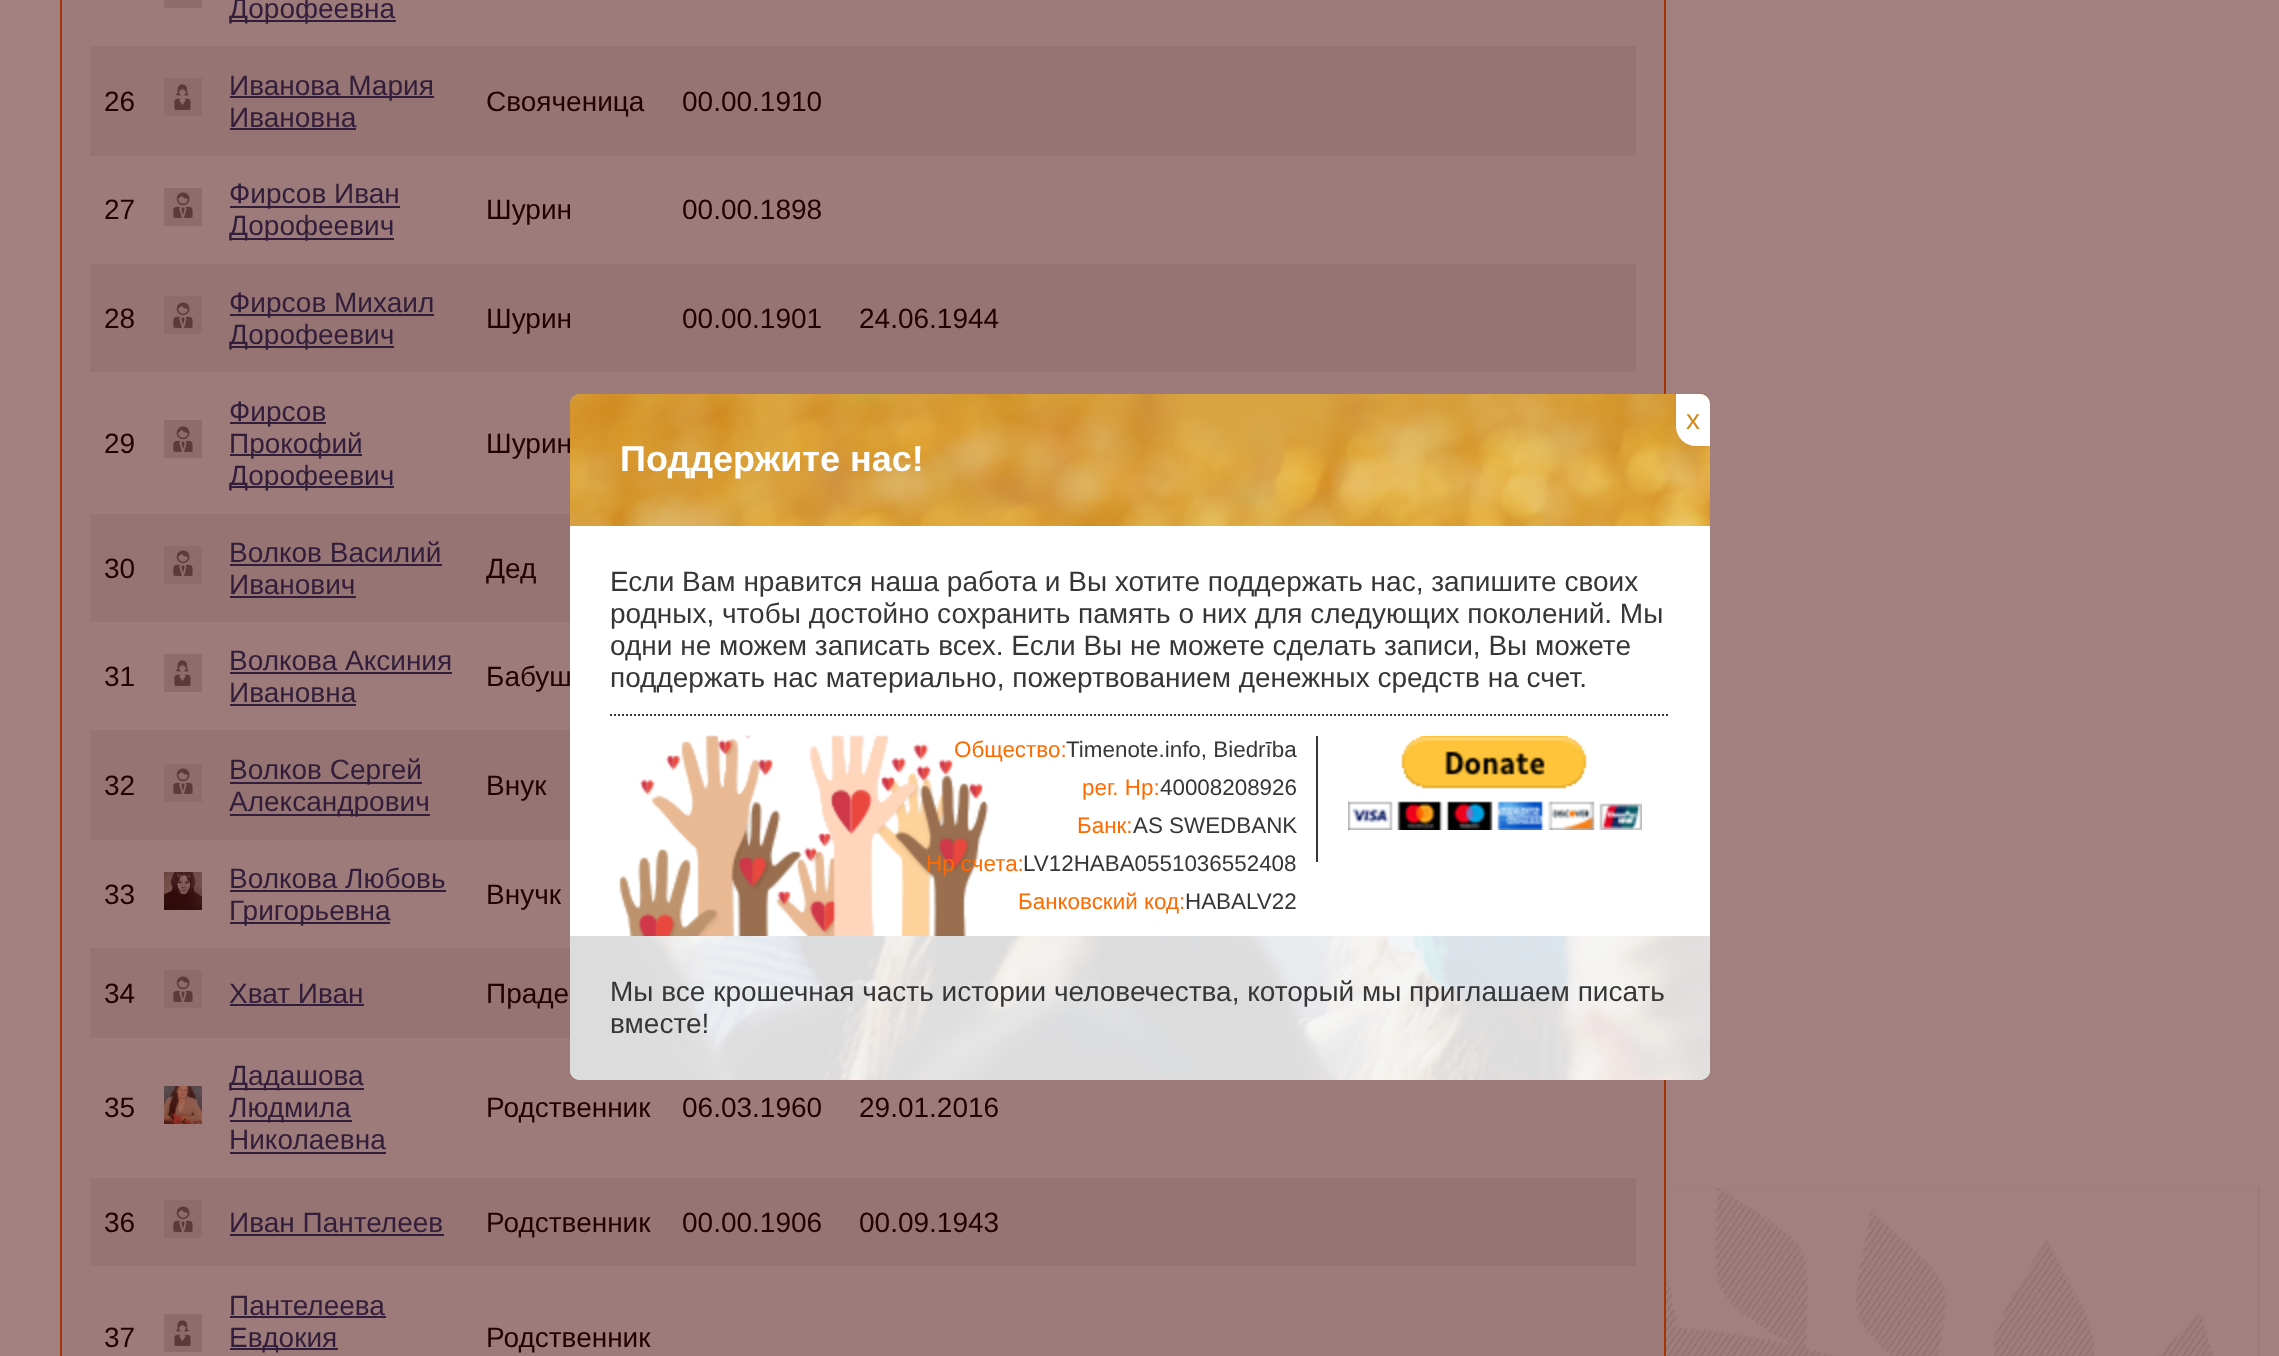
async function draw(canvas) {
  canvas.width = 2279
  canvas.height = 1356
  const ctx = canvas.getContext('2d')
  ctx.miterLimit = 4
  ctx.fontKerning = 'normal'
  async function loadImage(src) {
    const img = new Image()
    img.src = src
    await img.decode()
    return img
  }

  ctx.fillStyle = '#a28080'
  ctx.fillRect(0, 0, 2279, 1356)
  ctx.fillStyle = '#9d7b7b'
  ctx.beginPath()
  ctx.rect(61, -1, 1604, 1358)
  ctx.fill()
  ctx.strokeStyle = '#a23500'
  ctx.lineWidth = 2
  ctx.stroke()
  ctx.fillStyle = '#8e6c6c'
  ctx.fillRect(164, 0, 38, 8)
  ctx.fillStyle = '#321e3a'
  ctx.fillRect(230, 20, 166, 2)
  ctx.font = '28px Liberation Sans'
  ctx.fillText('Дорофеевна', 229, 18)
  ctx.fillStyle = '#967474'
  ctx.fillRect(90, 46, 1546, 110)
  ctx.fillStyle = '#200'
  ctx.fillText('26', 104, 111)
  ctx.fillStyle = '#8e6c6c'
  ctx.fillRect(164, 78, 38, 38)
  ctx.drawImage(await loadImage('image0.png'), 174, 84, 17, 26)
  ctx.fillStyle = '#321e3a'
  ctx.fillRect(230, 96, 204, 2)
  ctx.fillText('Иванова Мария', 229, 95)
  ctx.fillText('Ивановна', 229, 127)
  ctx.fillRect(230, 128, 126, 2)
  ctx.fillStyle = '#200'
  ctx.fillText('Свояченица', 486, 111)
  ctx.fillText('00.00.1910', 682, 111)
  ctx.fillText('27', 104, 219)
  ctx.fillStyle = '#8e6c6c'
  ctx.fillRect(164, 188, 38, 38)
  ctx.drawImage(await loadImage('image1.png'), 173, 192, 20, 26)
  ctx.fillStyle = '#321e3a'
  ctx.fillRect(230, 206, 170, 2)
  ctx.fillText('Фирсов Иван', 229, 203)
  ctx.fillRect(230, 238, 164, 2)
  ctx.fillText('Дорофеевич', 229, 235)
  ctx.fillStyle = '#200'
  ctx.fillText('Шурин', 486, 219)
  ctx.fillText('00.00.1898', 682, 219)
  ctx.fillStyle = '#967474'
  ctx.fillRect(90, 264, 1546, 108)
  ctx.fillStyle = '#200'
  ctx.fillText('28', 104, 328)
  ctx.fillStyle = '#8e6c6c'
  ctx.fillRect(164, 296, 38, 38)
  ctx.drawImage(await loadImage('image1.png'), 173, 302, 20, 26)
  ctx.fillStyle = '#321e3a'
  ctx.fillRect(230, 314, 204, 2)
  ctx.fillText('Фирсов Михаил', 229, 312)
  ctx.fillRect(230, 346, 164, 2)
  ctx.fillText('Дорофеевич', 229, 344)
  ctx.fillStyle = '#200'
  ctx.fillText('Шурин', 486, 328)
  ctx.fillText('00.00.1901', 682, 328)
  ctx.fillText('24.06.1944', 859, 328)
  ctx.fillText('29', 104, 453)
  ctx.fillStyle = '#8e6c6c'
  ctx.fillRect(164, 420, 38, 38)
  ctx.drawImage(await loadImage('image1.png'), 173, 426, 20, 26)
  ctx.fillStyle = '#321e3a'
  ctx.fillRect(230, 422, 96, 2)
  ctx.fillText('Фирсов', 229, 421)
  ctx.fillRect(230, 454, 132, 2)
  ctx.fillText('Прокофий', 229, 453)
  ctx.fillRect(230, 486, 164, 2)
  ctx.fillText('Дорофеевич', 229, 485)
  ctx.fillStyle = '#200'
  ctx.fillText('Шурин', 486, 453)
  ctx.fillStyle = '#967474'
  ctx.fillRect(90, 514, 480, 108)
  ctx.fillStyle = '#200'
  ctx.fillText('30', 104, 578)
  ctx.fillStyle = '#8e6c6c'
  ctx.fillRect(164, 546, 38, 38)
  ctx.drawImage(await loadImage('image1.png'), 173, 550, 20, 26)
  ctx.fillStyle = '#321e3a'
  ctx.fillText('Волков Василий', 229, 562)
  ctx.fillRect(230, 564, 212, 2)
  ctx.fillText('Иванович', 229, 594)
  ctx.fillRect(230, 596, 126, 2)
  ctx.fillStyle = '#200'
  ctx.fillText('Дед', 486, 578)
  ctx.fillText('31', 104, 686)
  ctx.fillStyle = '#8e6c6c'
  ctx.fillRect(164, 654, 38, 38)
  ctx.drawImage(await loadImage('image0.png'), 174, 660, 17, 26)
  ctx.fillStyle = '#321e3a'
  ctx.fillText('Волкова Аксиния', 229, 670)
  ctx.fillRect(230, 672, 222, 2)
  ctx.fillText('Ивановна', 229, 702)
  ctx.fillRect(230, 704, 126, 2)
  ctx.fillStyle = '#200'
  ctx.fillText('Бабуш', 486, 686)
  ctx.fillStyle = '#967474'
  ctx.fillRect(90, 730, 480, 110)
  ctx.fillStyle = '#200'
  ctx.fillText('32', 104, 795)
  ctx.fillStyle = '#8e6c6c'
  ctx.fillRect(164, 764, 38, 38)
  ctx.drawImage(await loadImage('image1.png'), 173, 768, 20, 26)
  ctx.fillStyle = '#321e3a'
  ctx.fillRect(230, 782, 192, 2)
  ctx.fillText('Волков Сергей', 229, 779)
  ctx.fillRect(230, 814, 200, 2)
  ctx.fillText('Александрович', 229, 811)
  ctx.fillStyle = '#200'
  ctx.fillText('Внук', 486, 795)
  ctx.fillText('33', 104, 904)
  ctx.drawImage(await loadImage('image2.png'), 164, 872, 38, 38)
  ctx.fillStyle = '#321e3a'
  ctx.fillText('Волкова Любовь', 229, 888)
  ctx.fillRect(230, 890, 216, 2)
  ctx.fillRect(230, 922, 160, 2)
  ctx.fillText('Григорьевна', 229, 920)
  ctx.fillStyle = '#200'
  ctx.fillText('Внучк', 486, 904)
  ctx.fillStyle = '#967474'
  ctx.fillRect(90, 948, 480, 90)
  ctx.fillStyle = '#200'
  ctx.fillText('34', 104, 1003)
  ctx.fillStyle = '#8e6c6c'
  ctx.fillRect(164, 970, 38, 38)
  ctx.drawImage(await loadImage('image1.png'), 173, 976, 20, 26)
  ctx.fillStyle = '#321e3a'
  ctx.fillText('Хват Иван', 229, 1003)
  ctx.fillRect(230, 1004, 134, 2)
  ctx.fillStyle = '#200'
  ctx.fillText('Праде', 486, 1003)
  ctx.fillText('35', 104, 1117)
  ctx.drawImage(await loadImage('image3.png'), 164, 1086, 38, 38)
  ctx.fillStyle = '#321e3a'
  ctx.fillRect(230, 1088, 134, 2)
  ctx.fillText('Дадашова', 229, 1085)
  ctx.fillRect(230, 1120, 122, 2)
  ctx.fillText('Людмила', 229, 1117)
  ctx.fillText('Николаевна', 229, 1149)
  ctx.fillRect(230, 1152, 156, 2)
  ctx.fillStyle = '#200'
  ctx.fillText('Родственник', 486, 1117)
  ctx.fillText('06.03.1960', 682, 1117)
  ctx.fillText('29.01.2016', 859, 1117)
  ctx.fillStyle = '#967474'
  ctx.fillRect(90, 1178, 1546, 88)
  ctx.fillStyle = '#200'
  ctx.fillText('36', 104, 1232)
  ctx.fillStyle = '#8e6c6c'
  ctx.fillRect(164, 1200, 38, 38)
  ctx.drawImage(await loadImage('image1.png'), 173, 1206, 20, 26)
  ctx.fillStyle = '#321e3a'
  ctx.fillText('Иван Пантелеев', 229, 1232)
  ctx.fillRect(230, 1234, 214, 2)
  ctx.fillStyle = '#200'
  ctx.fillText('Родственник', 486, 1232)
  ctx.fillText('00.00.1906', 682, 1232)
  ctx.fillText('00.09.1943', 859, 1232)
  ctx.fillText('37', 104, 1347)
  ctx.fillStyle = '#8e6c6c'
  ctx.fillRect(164, 1314, 38, 38)
  ctx.drawImage(await loadImage('image0.png'), 174, 1320, 17, 26)
  ctx.fillStyle = '#321e3a'
  ctx.fillText('Пантелеева', 229, 1315)
  ctx.fillRect(230, 1316, 156, 2)
  ctx.fillRect(230, 1348, 108, 2)
  ctx.fillText('Евдокия', 229, 1347)
  ctx.fillStyle = '#200'
  ctx.fillText('Родственник', 486, 1347)
  ctx.drawImage(await loadImage('image4.png'), 1666, 1188, 594, 168)
  ctx.fillStyle = '#fff'
  ctx.beginPath()
  ctx.roundRect(570, 394, 1140, 686, 10)
  ctx.fill()
  ctx.fillStyle = '#d18b21'
  ctx.beginPath()
  ctx.roundRect(570, 394, 1140, 132, [10, 10, 0, 0])
  ctx.fill()
  ctx.drawImage(await loadImage('image5.png'), 570, 394, 1140, 132)
  ctx.fillStyle = '#fff'
  ctx.beginPath()
  ctx.roundRect(1676, 394, 34, 52, [0, 10, 0, 20])
  ctx.fill()
  ctx.fillStyle = '#d18b21'
  ctx.fillText('x', 1686, 429)
  ctx.font = 'bold 36px Liberation Sans'
  ctx.fillStyle = '#fff'
  ctx.fillText('Поддержите нас!', 620, 471)
  ctx.font = '28px Liberation Sans'
  ctx.fillStyle = '#363636'
  ctx.fillText('Если Вам нравится наша работа и Вы хотите поддержать нас, запишите своих', 610, 591)
  ctx.fillText('родных, чтобы достойно сохранить память о них для следующих поколений. Мы', 610, 623)
  ctx.fillText('одни не можем записать всех. Если Вы не можете сделать записи, Вы можете', 610, 655)
  ctx.fillText('поддержать нас материально, пожертвованием денежных средств на счет.', 610, 687)
  ctx.beginPath()
  ctx.moveTo(610, 715)
  ctx.lineTo(1670, 715)
  ctx.strokeStyle = '#363636'
  ctx.setLineDash([2, 2])
  ctx.stroke()
  ctx.drawImage(await loadImage('image6.png'), 619, 735, 370, 201)
  ctx.font = '22.4px Liberation Sans'
  ctx.fillStyle = '#ff6a00'
  ctx.fillText('Общество:', 954, 757)
  ctx.fillStyle = '#363636'
  ctx.fillText('Timenote.info, Biedrība', 1066, 757)
  ctx.fillStyle = '#ff6a00'
  ctx.fillText('рег. Нр:', 1082, 795)
  ctx.fillStyle = '#363636'
  ctx.fillText('40008208926', 1160, 795)
  ctx.fillStyle = '#ff6a00'
  ctx.fillText('Банк:', 1077, 833)
  ctx.fillStyle = '#363636'
  ctx.fillText('AS SWEDBANK', 1133, 833)
  ctx.fillStyle = '#ff6a00'
  ctx.fillText('Нр счета:', 926, 871)
  ctx.fillStyle = '#363636'
  ctx.fillText('LV12HABA0551036552408', 1023, 871)
  ctx.fillStyle = '#ff6a00'
  ctx.fillText('Банковский код:', 1018, 909)
  ctx.fillStyle = '#363636'
  ctx.fillText('HABALV22', 1185, 909)
  ctx.fillRect(1316, 736, 2, 126)
  ctx.drawImage(await loadImage('image7.png'), 1348, 736, 294, 94)
  ctx.fillStyle = '#dedede'
  ctx.beginPath()
  ctx.roundRect(570, 936, 1140, 144, [0, 0, 10, 10])
  ctx.fill()
  ctx.drawImage(await loadImage('image8.png'), 570, 936, 1140, 144)
  ctx.font = '28px Liberation Sans'
  ctx.fillStyle = '#363636'
  ctx.fillText('Мы все крошечная часть истории человечества, который мы приглашаем писать', 610, 1001)
  ctx.fillText('вместе!', 610, 1033)
}

draw(document.querySelector('canvas'))
